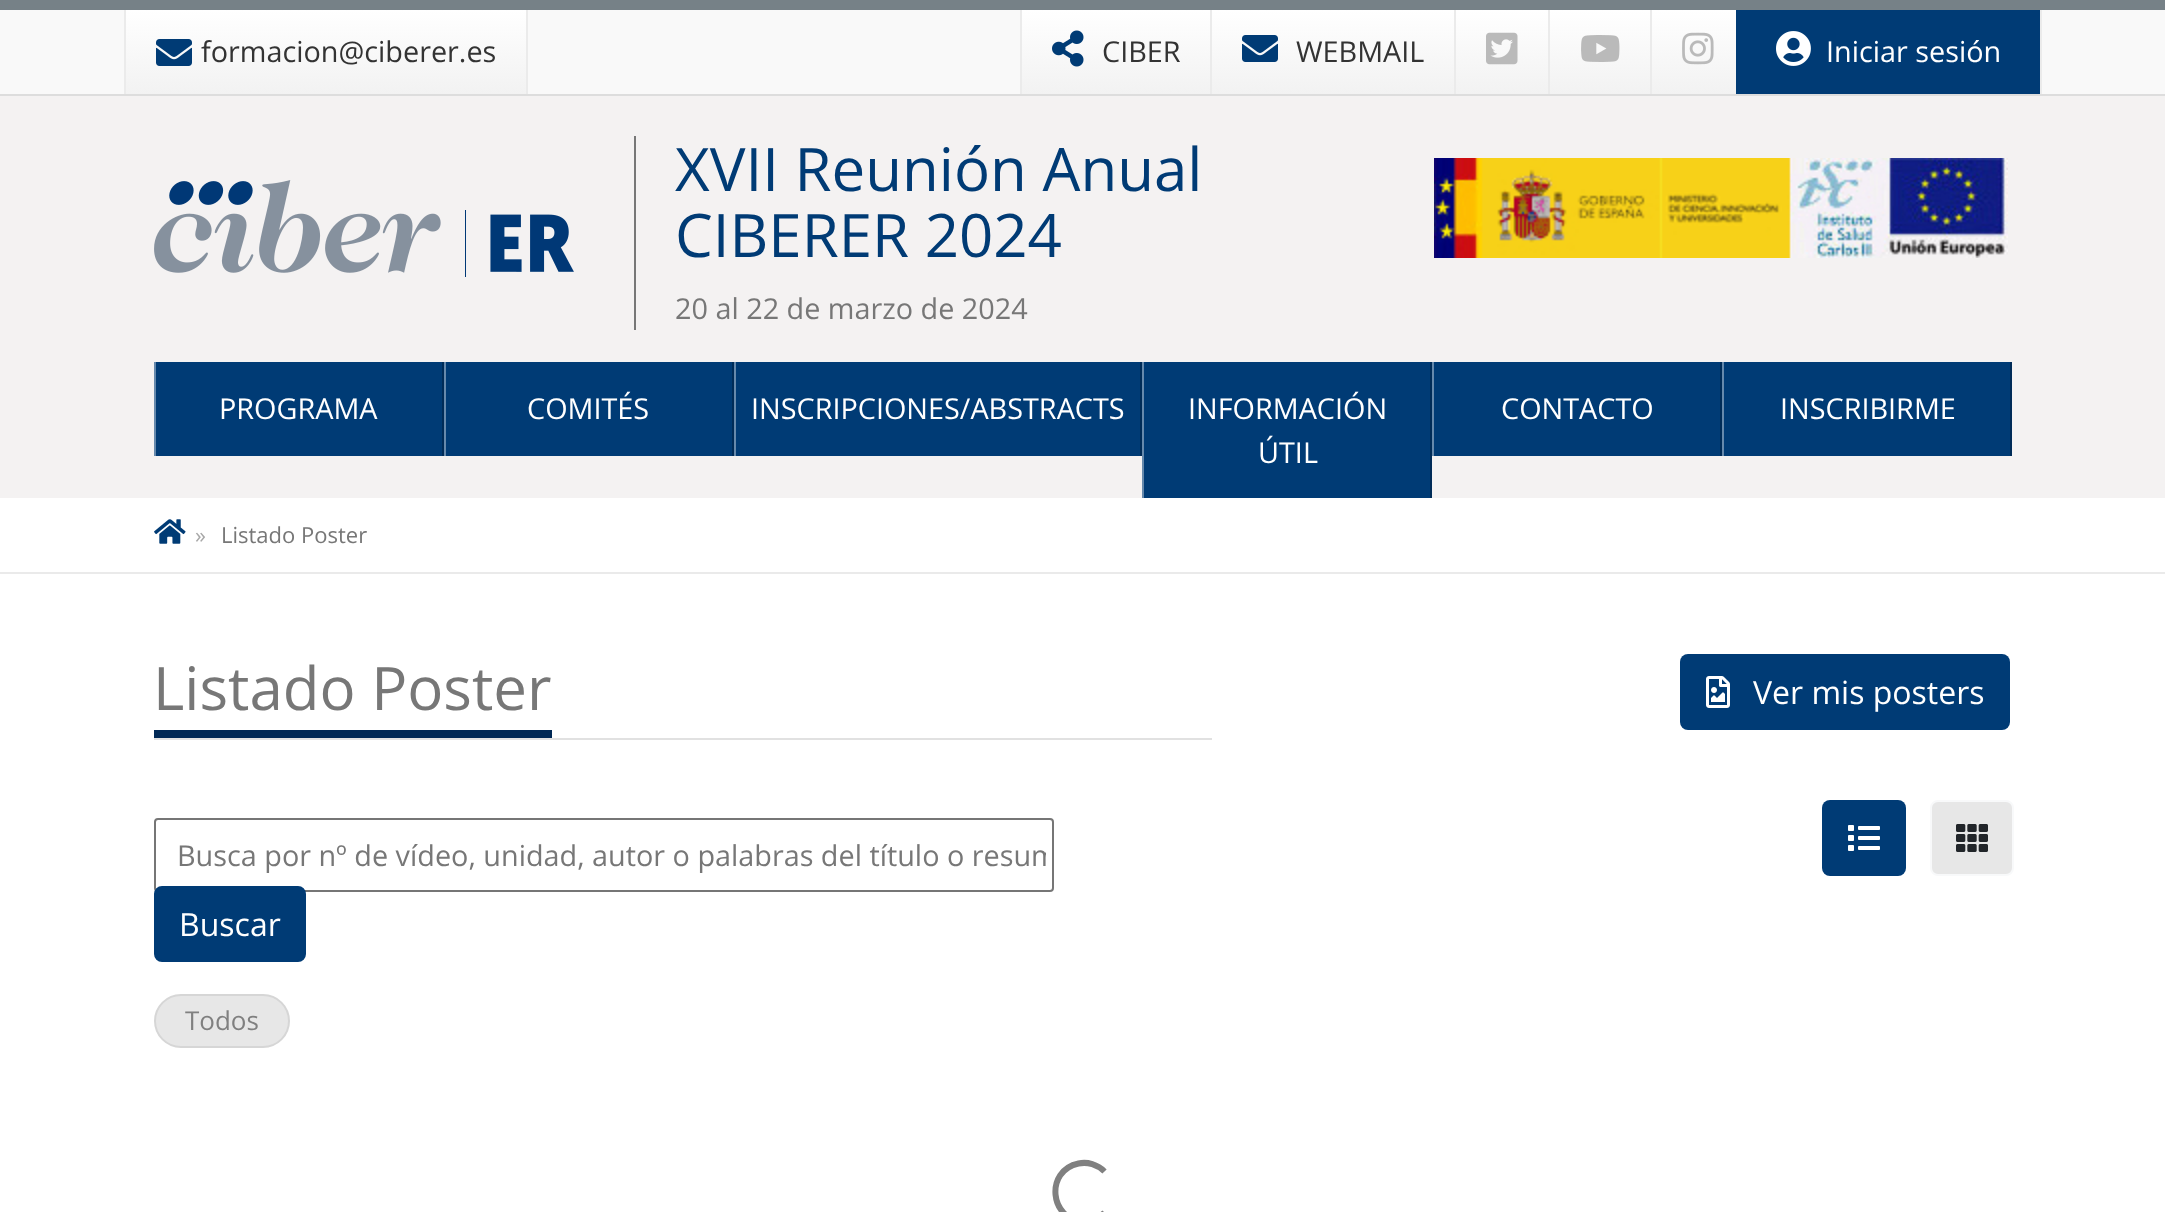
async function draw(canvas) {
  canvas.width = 2165
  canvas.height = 1212
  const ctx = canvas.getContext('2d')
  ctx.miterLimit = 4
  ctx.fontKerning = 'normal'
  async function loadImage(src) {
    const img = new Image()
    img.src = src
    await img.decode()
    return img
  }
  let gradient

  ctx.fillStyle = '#fff'
  ctx.fillRect(0, 0, 2165, 1212)
  ctx.fillStyle = '#f9f9f9'
  ctx.fillRect(0, 10, 2165, 84)
  ctx.fillStyle = '#768187'
  ctx.fillRect(0, 0, 2165, 10)
  ctx.fillStyle = '#ddd'
  ctx.fillRect(0, 94, 2165, 2)
  gradient = ctx.createLinearGradient(326, 10, 326, 94)
  gradient.addColorStop(0, '#fff')
  gradient.addColorStop(1, '#f2f2f2')
  ctx.fillStyle = gradient
  ctx.fillRect(126, 10, 400, 84)
  ctx.fillStyle = '#ebebeb'
  ctx.fillRect(526, 10, 2, 84)
  ctx.fillRect(124, 10, 2, 84)
  ctx.drawImage(await loadImage('image0.png'), 156, 39, 36, 27)
  ctx.font = '28.8px Open Sans'
  ctx.fillStyle = '#333'
  ctx.fillText('formacion@ciberer.es', 201, 62)
  gradient = ctx.createLinearGradient(1116, 10, 1116, 94)
  gradient.addColorStop(0, '#fff')
  gradient.addColorStop(1, '#f2f2f2')
  ctx.fillStyle = gradient
  ctx.fillRect(1022, 10, 188, 84)
  ctx.fillStyle = '#ebebeb'
  ctx.fillRect(1210, 10, 2, 84)
  ctx.fillRect(1020, 10, 2, 84)
  ctx.drawImage(await loadImage('image1.png'), 1052, 30, 32, 37)
  ctx.fillStyle = '#333'
  ctx.fillText('CIBER', 1102, 62)
  gradient = ctx.createLinearGradient(1333, 10, 1333, 94)
  gradient.addColorStop(0, '#fff')
  gradient.addColorStop(1, '#f2f2f2')
  ctx.fillStyle = gradient
  ctx.fillRect(1212, 10, 242, 84)
  ctx.fillStyle = '#ebebeb'
  ctx.fillRect(1454, 10, 2, 84)
  ctx.drawImage(await loadImage('image2.png'), 1242, 35, 36, 27)
  ctx.fillStyle = '#333'
  ctx.fillText('WEBMAIL', 1296, 62)
  gradient = ctx.createLinearGradient(1502, 10, 1502, 94)
  gradient.addColorStop(0, '#fff')
  gradient.addColorStop(1, '#f2f2f2')
  ctx.fillStyle = gradient
  ctx.fillRect(1456, 10, 92, 84)
  ctx.fillStyle = '#ebebeb'
  ctx.fillRect(1548, 10, 2, 84)
  ctx.drawImage(await loadImage('image3.png'), 1486, 32, 32, 33)
  gradient = ctx.createLinearGradient(1600, 10, 1600, 94)
  gradient.addColorStop(0, '#fff')
  gradient.addColorStop(1, '#f2f2f2')
  ctx.fillStyle = gradient
  ctx.fillRect(1550, 10, 100, 84)
  ctx.fillStyle = '#ebebeb'
  ctx.fillRect(1650, 10, 2, 84)
  ctx.drawImage(await loadImage('image4.png'), 1581, 35, 39, 27)
  gradient = ctx.createLinearGradient(1698, 10, 1698, 94)
  gradient.addColorStop(0, '#fff')
  gradient.addColorStop(1, '#f2f2f2')
  ctx.fillStyle = gradient
  ctx.fillRect(1652, 10, 84, 84)
  ctx.drawImage(await loadImage('image5.png'), 1682, 32, 32, 33)
  ctx.fillStyle = '#003b75'
  ctx.fillRect(1736, 10, 304, 84)
  ctx.fillStyle = '#ebebeb'
  ctx.fillRect(2040, 10, 2, 84)
  ctx.drawImage(await loadImage('image6.png'), 1776, 31, 35, 35)
  ctx.fillStyle = '#fff'
  ctx.fillText('Iniciar sesión', 1826, 62)
  ctx.fillStyle = '#f4f2f2'
  ctx.fillRect(0, 96, 2165, 402)
  ctx.drawImage(await loadImage('image7.png'), 154, 180, 420, 97)
  ctx.fillStyle = '#777'
  ctx.fillRect(634, 136, 2, 194)
  ctx.font = '60px Open Sans'
  ctx.fillStyle = '#003b75'
  ctx.fillText('XVII Reunión Anual', 675, 191)
  ctx.fillText('CIBERER 2024', 675, 257)
  ctx.font = '28.8px Open Sans'
  ctx.fillStyle = '#777'
  ctx.fillText('20 al 22 de marzo de 2024', 675, 319)
  ctx.drawImage(await loadImage('image8.png'), 1434, 158, 574, 100)
  ctx.fillStyle = '#003b75'
  ctx.fillRect(156, 362, 286, 94)
  ctx.fillStyle = '#002c58'
  ctx.fillRect(442, 362, 2, 94)
  ctx.fillStyle = '#6689ac'
  ctx.fillRect(154, 362, 2, 94)
  ctx.fillStyle = '#fff'
  ctx.fillText('PROGRAMA', 219, 419)
  ctx.fillStyle = '#003b75'
  ctx.fillRect(446, 362, 286, 94)
  ctx.fillStyle = '#002c58'
  ctx.fillRect(732, 362, 2, 94)
  ctx.fillStyle = '#6689ac'
  ctx.fillRect(444, 362, 2, 94)
  ctx.fillStyle = '#fff'
  ctx.fillText('COMITÉS', 527, 419)
  ctx.fillStyle = '#003b75'
  ctx.fillRect(736, 362, 404, 94)
  ctx.fillStyle = '#002c58'
  ctx.fillRect(1140, 362, 2, 94)
  ctx.fillStyle = '#6689ac'
  ctx.fillRect(734, 362, 2, 94)
  ctx.fillStyle = '#fff'
  ctx.fillText('INSCRIPCIONES/ABSTRACTS', 751, 419)
  ctx.fillStyle = '#003b75'
  ctx.fillRect(1144, 362, 286, 136)
  ctx.fillStyle = '#002c58'
  ctx.fillRect(1430, 362, 2, 136)
  ctx.fillStyle = '#6689ac'
  ctx.fillRect(1142, 362, 2, 136)
  ctx.fillStyle = '#fff'
  ctx.fillText('INFORMACIÓN', 1188, 419)
  ctx.fillText('ÚTIL', 1258, 463)
  ctx.fillStyle = '#003b75'
  ctx.fillRect(1434, 362, 286, 94)
  ctx.fillStyle = '#002c58'
  ctx.fillRect(1720, 362, 2, 94)
  ctx.fillStyle = '#6689ac'
  ctx.fillRect(1432, 362, 2, 94)
  ctx.fillStyle = '#fff'
  ctx.fillText('CONTACTO', 1501, 419)
  ctx.fillStyle = '#003b75'
  ctx.fillRect(1724, 362, 286, 94)
  ctx.fillStyle = '#002c58'
  ctx.fillRect(2010, 362, 2, 94)
  ctx.fillStyle = '#6689ac'
  ctx.fillRect(1722, 362, 2, 94)
  ctx.fillStyle = '#fff'
  ctx.fillText('INSCRIBIRME', 1780, 419)
  ctx.fillStyle = '#eaeaea'
  ctx.fillRect(0, 572, 2165, 2)
  ctx.drawImage(await loadImage('image9.png'), 154, 519, 32, 25)
  ctx.font = '22px Open Sans'
  ctx.fillStyle = '#a8a8a8'
  ctx.fillText('»', 195, 543)
  ctx.fillStyle = '#777'
  ctx.fillText('Listado Poster', 221, 543)
  ctx.fillStyle = '#e1e1e1'
  ctx.fillRect(154, 738, 1058, 2)
  ctx.fillStyle = '#002855'
  ctx.fillRect(154, 730, 398, 8)
  ctx.font = '60px Open Sans'
  ctx.fillStyle = '#777'
  ctx.fillText('Listado Poster', 153, 710)
  ctx.fillStyle = '#003b75'
  ctx.beginPath()
  ctx.roundRect(1680, 654, 330, 76, 8)
  ctx.fill()
  ctx.drawImage(await loadImage('image10.png'), 1706, 676, 24, 32)
  ctx.font = '32px Open Sans'
  ctx.fillStyle = '#fff'
  ctx.fillText('Ver mis posters', 1753, 704)
  ctx.beginPath()
  ctx.roundRect(155, 819, 898, 72, 3)
  ctx.strokeStyle = '#767676'
  ctx.lineWidth = 2
  ctx.stroke()
  ctx.save()
  ctx.beginPath()
  ctx.rect(178, 836, 868, 38)
  ctx.clip()
  ctx.font = '28.8px Open Sans'
  ctx.fillStyle = '#777'
  ctx.fillText('Busca por nº de vídeo, unidad, autor o palabras del título o resum', 177, 866)
  ctx.restore()
  ctx.fillStyle = '#003b75'
  ctx.beginPath()
  ctx.roundRect(155, 887, 150, 74, 7)
  ctx.fill()
  ctx.strokeStyle = '#003b75'
  ctx.stroke()
  ctx.fillStyle = '#fff'
  ctx.fillText('Buscar', 179, 936)
  ctx.fillStyle = '#003b75'
  ctx.beginPath()
  ctx.roundRect(1822, 800, 84, 76, 8)
  ctx.fill()
  ctx.drawImage(await loadImage('image11.png'), 1848, 825, 32, 26)
  ctx.fillStyle = '#e7e7e7'
  ctx.beginPath()
  ctx.roundRect(1931, 801, 82, 74, 7)
  ctx.fill()
  ctx.strokeStyle = '#f8f9fa'
  ctx.stroke()
  ctx.drawImage(await loadImage('image12.png'), 1956, 824, 32, 28)
  ctx.beginPath()
  ctx.roundRect(155, 995, 134, 52, 26)
  ctx.fill()
  ctx.strokeStyle = '#d6d6d6'
  ctx.stroke()
  ctx.font = '26px Open Sans'
  ctx.fillStyle = '#808080'
  ctx.fillText('Todos', 185, 1030)
  ctx.beginPath()
  ctx.moveTo(1104.5, 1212.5)
  ctx.bezierCurveTo(1099, 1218, 1091.5, 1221, 1084, 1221)
  ctx.bezierCurveTo(1049.5, 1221, 1044.5, 1170.5, 1078.5, 1163.5)
  ctx.bezierCurveTo(1087.5, 1161.5, 1097.5, 1164.5, 1104.5, 1171.5)
  ctx.strokeStyle = '#808080'
  ctx.lineWidth = 6
  ctx.stroke()
}

draw(document.querySelector('canvas'))
